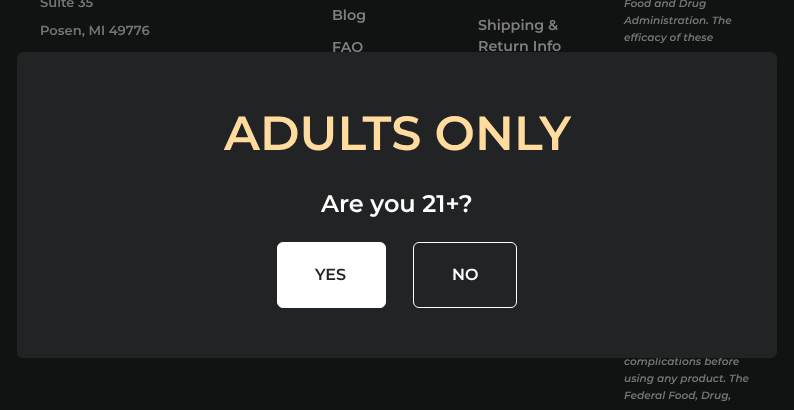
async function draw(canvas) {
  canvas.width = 794
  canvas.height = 410
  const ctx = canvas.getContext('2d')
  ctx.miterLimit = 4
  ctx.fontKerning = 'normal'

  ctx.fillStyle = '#111212'
  ctx.fillRect(0, 0, 794, 410)
  ctx.font = '600 13.1px Montserrat'
  ctx.fillStyle = '#757575'
  ctx.fillText('Suite 35', 40, 7)
  ctx.fillText('Posen, MI 49776', 40, 35)
  ctx.font = '600 14.25px Montserrat'
  ctx.fillStyle = '#808080'
  ctx.fillText('Blog', 332, 20)
  ctx.fillText('FAQ', 332, 52)
  ctx.fillText('Shipping &', 478, 30)
  ctx.fillText('Return Info', 478, 51)
  ctx.font = 'italic 600 10.5px Montserrat'
  ctx.fillStyle = '#757575'
  ctx.fillText('Food and Drug', 624, 7)
  ctx.fillText('Administration. The', 624, 24)
  ctx.fillText('efficacy of these', 624, 41)
  ctx.fillText('complications before', 624, 365)
  ctx.fillText('using any product. The', 624, 382)
  ctx.fillText('Federal Food, Drug,', 624, 399)
  ctx.fillStyle = '#222324'
  ctx.beginPath()
  ctx.roundRect(17, 52, 760, 306, 6)
  ctx.fill()
  ctx.font = '600 48px Montserrat'
  ctx.fillStyle = '#ffdb9f'
  ctx.fillText('ADULTS ONLY', 224, 150)
  ctx.font = '600 24px Montserrat'
  ctx.fillStyle = '#fff'
  ctx.fillText('Are you 21+?', 321, 212)
  ctx.beginPath()
  ctx.roundRect(277.5, 242.5, 108, 65, 5.5)
  ctx.fill()
  ctx.strokeStyle = '#fff'
  ctx.stroke()
  ctx.font = '600 16px Montserrat'
  ctx.fillStyle = '#222324'
  ctx.fillText('YES', 315, 280)
  ctx.beginPath()
  ctx.roundRect(413.5, 242.5, 103, 65, 5.5)
  ctx.stroke()
  ctx.fillStyle = '#fff'
  ctx.fillText('NO', 452, 280)
}

draw(document.querySelector('canvas'))
